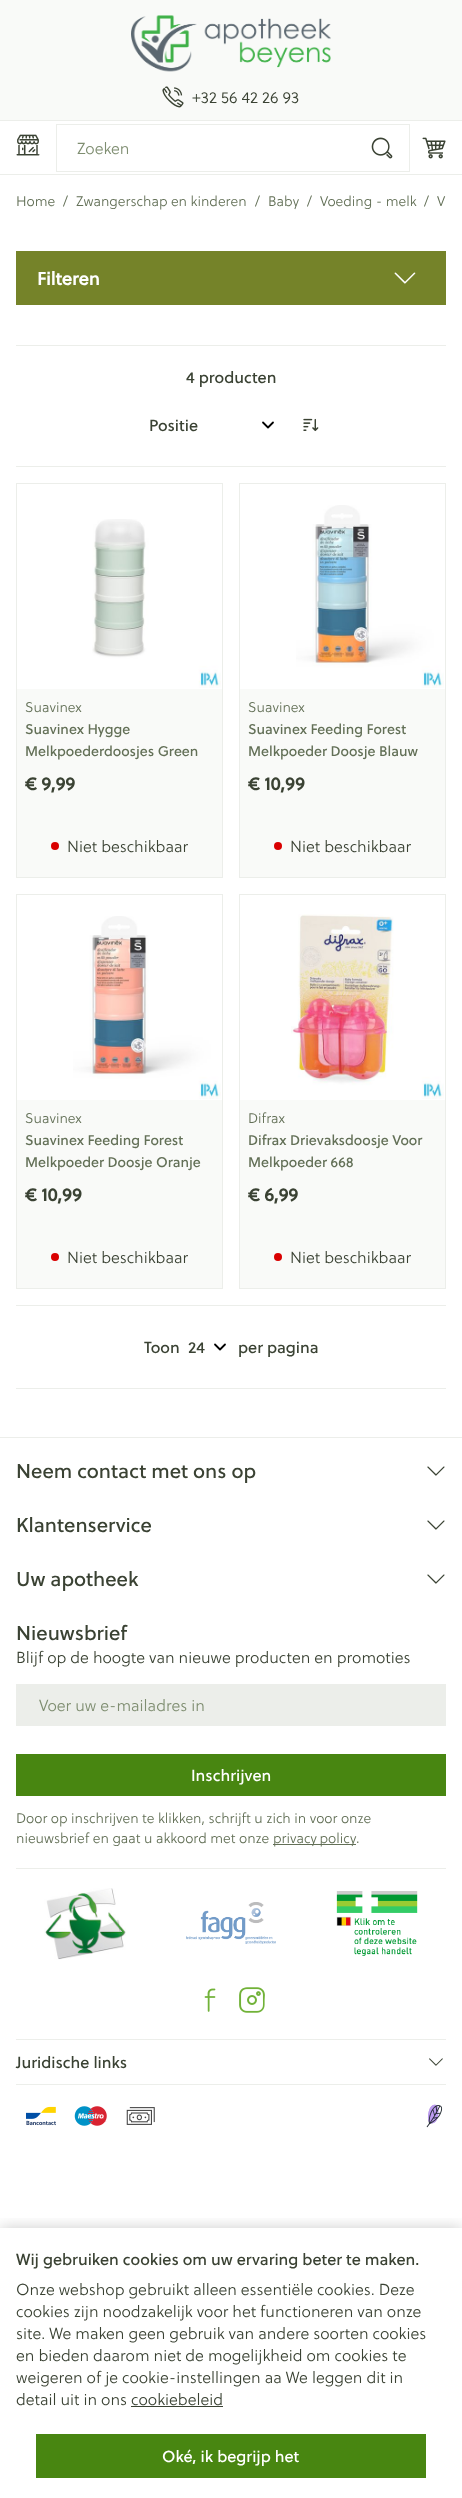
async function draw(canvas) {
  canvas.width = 462
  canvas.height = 2498
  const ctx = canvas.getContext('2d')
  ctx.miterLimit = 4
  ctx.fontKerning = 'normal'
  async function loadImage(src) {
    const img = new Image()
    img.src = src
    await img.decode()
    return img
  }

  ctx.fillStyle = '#fff'
  ctx.fillRect(0, 0, 462, 2498)
  ctx.fillStyle = '#f9faf8'
  ctx.fillRect(0, 0, 462, 120)
  ctx.drawImage(await loadImage('image0.png'), 131, 15, 200, 57)
  ctx.drawImage(await loadImage('image1.png'), 162, 86, 22, 22)
  ctx.font = '300 16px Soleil'
  ctx.fillStyle = '#3a4233'
  ctx.fillText('+32 56 42 26 93', 192, 103)
  ctx.fillStyle = '#eceeea'
  ctx.fillRect(0, 120, 462, 1)
  ctx.fillRect(0, 174, 462, 1)
  ctx.drawImage(await loadImage('image2.png'), 16, 134, 24, 22)
  ctx.strokeStyle = '#eceeea'
  ctx.strokeRect(56.5, 124.5, 353, 47)
  ctx.fillStyle = '#7f8e71'
  ctx.fillText('Zoeken', 77, 154)
  ctx.drawImage(await loadImage('image3.png'), 371, 137, 22, 22)
  ctx.drawImage(await loadImage('image4.png'), 422, 137, 24, 22)
  ctx.font = '300 14px Soleil'
  ctx.fillStyle = '#637057'
  ctx.fillText('Home', 16, 206)
  ctx.fillText('/', 63, 206)
  ctx.fillText('Zwangerschap en kinderen', 76, 206)
  ctx.fillText('/', 255, 206)
  ctx.fillText('Baby', 268, 206)
  ctx.fillText('/', 307, 206)
  ctx.fillText('Voeding - melk', 320, 206)
  ctx.fillText('/', 424, 206)
  ctx.fillText('V', 437, 206)
  ctx.fillStyle = '#758329'
  ctx.fillRect(16, 251, 430, 54)
  ctx.font = 'bold 18px Soleil'
  ctx.fillStyle = '#fff'
  ctx.fillText('Filteren', 37, 285)
  ctx.drawImage(await loadImage('image5.png'), 394, 272, 22, 12)
  ctx.fillStyle = '#eceeea'
  ctx.fillRect(16, 345, 430, 1)
  ctx.fillRect(16, 1388, 430, 1)
  ctx.font = '16px Soleil'
  ctx.fillStyle = '#3a4233'
  ctx.fillText('4 producten', 186, 383)
  ctx.beginPath()
  ctx.moveTo(263, 422.5)
  ctx.lineTo(268, 427.5)
  ctx.lineTo(273, 422.5)
  ctx.strokeStyle = '#000'
  ctx.lineWidth = 1.8
  ctx.lineCap = 'round'
  ctx.lineJoin = 'round'
  ctx.stroke()
  ctx.fillText('Positie', 149, 431)
  ctx.drawImage(await loadImage('image6.png'), 303, 418, 16, 14)
  ctx.fillStyle = '#eceeea'
  ctx.fillRect(16, 466, 430, 1)
  ctx.fillRect(16, 1305, 430, 1)
  ctx.strokeStyle = '#eceeea'
  ctx.lineWidth = 1
  ctx.lineJoin = 'miter'
  ctx.strokeRect(16.5, 483.5, 206, 394)
  ctx.drawImage(await loadImage('image7.png'), 92, 519, 129, 169)
  ctx.fillStyle = '#f9faf8'
  ctx.fillRect(17, 689, 205, 188)
  ctx.font = '300 14px Soleil'
  ctx.fillStyle = '#637057'
  ctx.fillText('Suavinex', 25, 712)
  ctx.font = '14px Soleil'
  ctx.fillText('Suavinex Hygge', 25, 734)
  ctx.fillText('Melkpoederdoosjes Green', 25, 756)
  ctx.font = 'bold 18px Soleil'
  ctx.fillStyle = '#3a4233'
  ctx.fillText('€ 9,99', 25, 790)
  ctx.fillStyle = '#d90000'
  ctx.beginPath()
  ctx.arc(55, 846, 4, 0, 2 * Math.PI)
  ctx.fill()
  ctx.font = '300 16px Soleil'
  ctx.fillStyle = '#3a4233'
  ctx.fillText('Niet beschikbaar', 67, 852)
  ctx.strokeRect(239.5, 483.5, 206, 394)
  ctx.drawImage(await loadImage('image8.png'), 296, 505, 148, 183)
  ctx.fillStyle = '#f9faf8'
  ctx.fillRect(240, 689, 205, 188)
  ctx.font = '300 14px Soleil'
  ctx.fillStyle = '#637057'
  ctx.fillText('Suavinex', 248, 712)
  ctx.font = '14px Soleil'
  ctx.fillText('Suavinex Feeding Forest', 248, 734)
  ctx.fillText('Melkpoeder Doosje Blauw', 248, 756)
  ctx.font = 'bold 18px Soleil'
  ctx.fillStyle = '#3a4233'
  ctx.fillText('€ 10,99', 248, 790)
  ctx.fillStyle = '#d90000'
  ctx.beginPath()
  ctx.arc(278, 846, 4, 0, 2 * Math.PI)
  ctx.fill()
  ctx.font = '300 16px Soleil'
  ctx.fillStyle = '#3a4233'
  ctx.fillText('Niet beschikbaar', 290, 852)
  ctx.strokeRect(16.5, 894.5, 206, 394)
  ctx.drawImage(await loadImage('image9.png'), 73, 916, 148, 183)
  ctx.fillStyle = '#f9faf8'
  ctx.fillRect(17, 1100, 205, 188)
  ctx.font = '300 14px Soleil'
  ctx.fillStyle = '#637057'
  ctx.fillText('Suavinex', 25, 1123)
  ctx.font = '14px Soleil'
  ctx.fillText('Suavinex Feeding Forest', 25, 1145)
  ctx.fillText('Melkpoeder Doosje Oranje', 25, 1167)
  ctx.font = 'bold 18px Soleil'
  ctx.fillStyle = '#3a4233'
  ctx.fillText('€ 10,99', 25, 1201)
  ctx.fillStyle = '#d90000'
  ctx.beginPath()
  ctx.arc(55, 1257, 4, 0, 2 * Math.PI)
  ctx.fill()
  ctx.font = '300 16px Soleil'
  ctx.fillStyle = '#3a4233'
  ctx.fillText('Niet beschikbaar', 67, 1263)
  ctx.strokeRect(239.5, 894.5, 206, 394)
  ctx.drawImage(await loadImage('image10.png'), 291, 914, 153, 185)
  ctx.fillStyle = '#f9faf8'
  ctx.fillRect(240, 1100, 205, 188)
  ctx.font = '300 14px Soleil'
  ctx.fillStyle = '#637057'
  ctx.fillText('Difrax', 248, 1123)
  ctx.font = '14px Soleil'
  ctx.fillText('Difrax Drievaksdoosje Voor', 248, 1145)
  ctx.fillText('Melkpoeder 668', 248, 1167)
  ctx.font = 'bold 18px Soleil'
  ctx.fillStyle = '#3a4233'
  ctx.fillText('€ 6,99', 248, 1201)
  ctx.fillStyle = '#d90000'
  ctx.beginPath()
  ctx.arc(278, 1257, 4, 0, 2 * Math.PI)
  ctx.fill()
  ctx.font = '300 16px Soleil'
  ctx.fillStyle = '#3a4233'
  ctx.fillText('Niet beschikbaar', 290, 1263)
  ctx.font = '16px Soleil'
  ctx.fillText('Toon', 144, 1353)
  ctx.beginPath()
  ctx.moveTo(215, 1344.5)
  ctx.lineTo(220, 1349.5)
  ctx.lineTo(225, 1344.5)
  ctx.strokeStyle = '#000'
  ctx.lineWidth = 1.8
  ctx.lineJoin = 'round'
  ctx.stroke()
  ctx.fillText('24', 188, 1353)
  ctx.fillText('per pagina', 238, 1353)
  ctx.fillStyle = '#eceeea'
  ctx.fillRect(0, 1437, 462, 1)
  ctx.font = '20px Soleil'
  ctx.fillStyle = '#3a4233'
  ctx.fillText('Neem contact met ons op', 16, 1478)
  ctx.drawImage(await loadImage('image11.png'), 427, 1466, 18, 10)
  ctx.fillText('Klantenservice', 16, 1532)
  ctx.drawImage(await loadImage('image11.png'), 427, 1520, 18, 10)
  ctx.fillText('Uw apotheek', 16, 1586)
  ctx.drawImage(await loadImage('image11.png'), 427, 1574, 18, 10)
  ctx.fillText('Nieuwsbrief', 16, 1640)
  ctx.font = '300 16px Soleil'
  ctx.fillText('Blijf op de hoogte van nieuwe producten en promoties', 16, 1663)
  ctx.fillStyle = '#eceeea'
  ctx.fillRect(16, 1684, 430, 42)
  ctx.fillStyle = '#7f8e71'
  ctx.fillText('Voer uw e-mailadres in', 39, 1711)
  ctx.fillStyle = '#488611'
  ctx.fillRect(16, 1754, 430, 42)
  ctx.font = '16px Soleil'
  ctx.fillStyle = '#fff'
  ctx.fillText('Inschrijven', 191, 1781)
  ctx.font = '300 14px Soleil'
  ctx.fillStyle = '#637057'
  ctx.fillText('Door op inschrijven te klikken, schrijft u zich in voor onze', 16, 1823)
  ctx.fillText('nieuwsbrief en gaat u akkoord met onze', 16, 1843)
  ctx.fillRect(273, 1844, 83, 1)
  ctx.wordSpacing = '-1px'
  ctx.fillText('privacy policy', 273, 1843)
  ctx.wordSpacing = '0px'
  ctx.fillText('.', 356, 1843)
  ctx.fillStyle = '#eceeea'
  ctx.fillRect(16, 1868, 430, 1)
  ctx.drawImage(await loadImage('image12.png'), 44, 1888, 82, 72)
  ctx.drawImage(await loadImage('image13.png'), 186, 1902, 90, 42)
  ctx.drawImage(await loadImage('image14.png'), 336, 1891, 82, 65)
  ctx.drawImage(await loadImage('image15.png'), 204, 1988, 12, 24)
  ctx.drawImage(await loadImage('image16.png'), 239, 1987, 26, 26)
  ctx.fillRect(16, 2039, 430, 1)
  ctx.fillRect(16, 2084, 430, 1)
  ctx.font = '16px Soleil'
  ctx.fillStyle = '#3a4233'
  ctx.fillText('Juridische links', 16, 2068)
  ctx.drawImage(await loadImage('image17.png'), 429, 2058, 14, 8)
  ctx.drawImage(await loadImage('image18.png'), 26, 2106, 30, 20)
  ctx.drawImage(await loadImage('image19.png'), 74, 2106, 33, 20)
  ctx.drawImage(await loadImage('image20.png'), 126, 2107, 29, 18)
  ctx.drawImage(await loadImage('image21.png'), 426, 2104, 17, 24)
  ctx.save()
  ctx.beginPath()
  ctx.rect(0, 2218, 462, 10)
  ctx.clip()
  ctx.fillStyle = '#00000033'
  ctx.filter = 'blur(7.5px)'
  ctx.beginPath()
  ctx.rect(0, 2228, 462, 270)
  ctx.fill()
  ctx.filter = 'none'
  ctx.restore()
  ctx.fillText('Wij gebruiken cookies om uw ervaring beter te maken.', 16, 2265)
  ctx.font = '300 16px Soleil'
  ctx.fillText('Onze webshop gebruikt alleen essentiële cookies. Deze', 16, 2295)
  ctx.fillText('cookies zijn noodzakelijk voor het functioneren van onze', 16, 2317)
  ctx.fillText('site. We maken geen gebruik van andere soorten cookies', 16, 2339)
  ctx.fillText('en bieden daarom niet de mogelijkheid om cookies te', 16, 2361)
  ctx.fillText('weigeren of je cookie-instellingen aa We leggen dit in', 16, 2383)
  ctx.fillText('detail uit in ons cookiebeleid', 16, 2405)
  ctx.fillRect(131, 2406, 92, 1)
  ctx.fillStyle = '#488611'
  ctx.fillRect(36, 2434, 390, 44)
  ctx.font = '16px Soleil'
  ctx.fillStyle = '#fff'
  ctx.fillText('Oké, ik begrijp het', 162, 2462)
}

draw(document.querySelector('canvas'))
